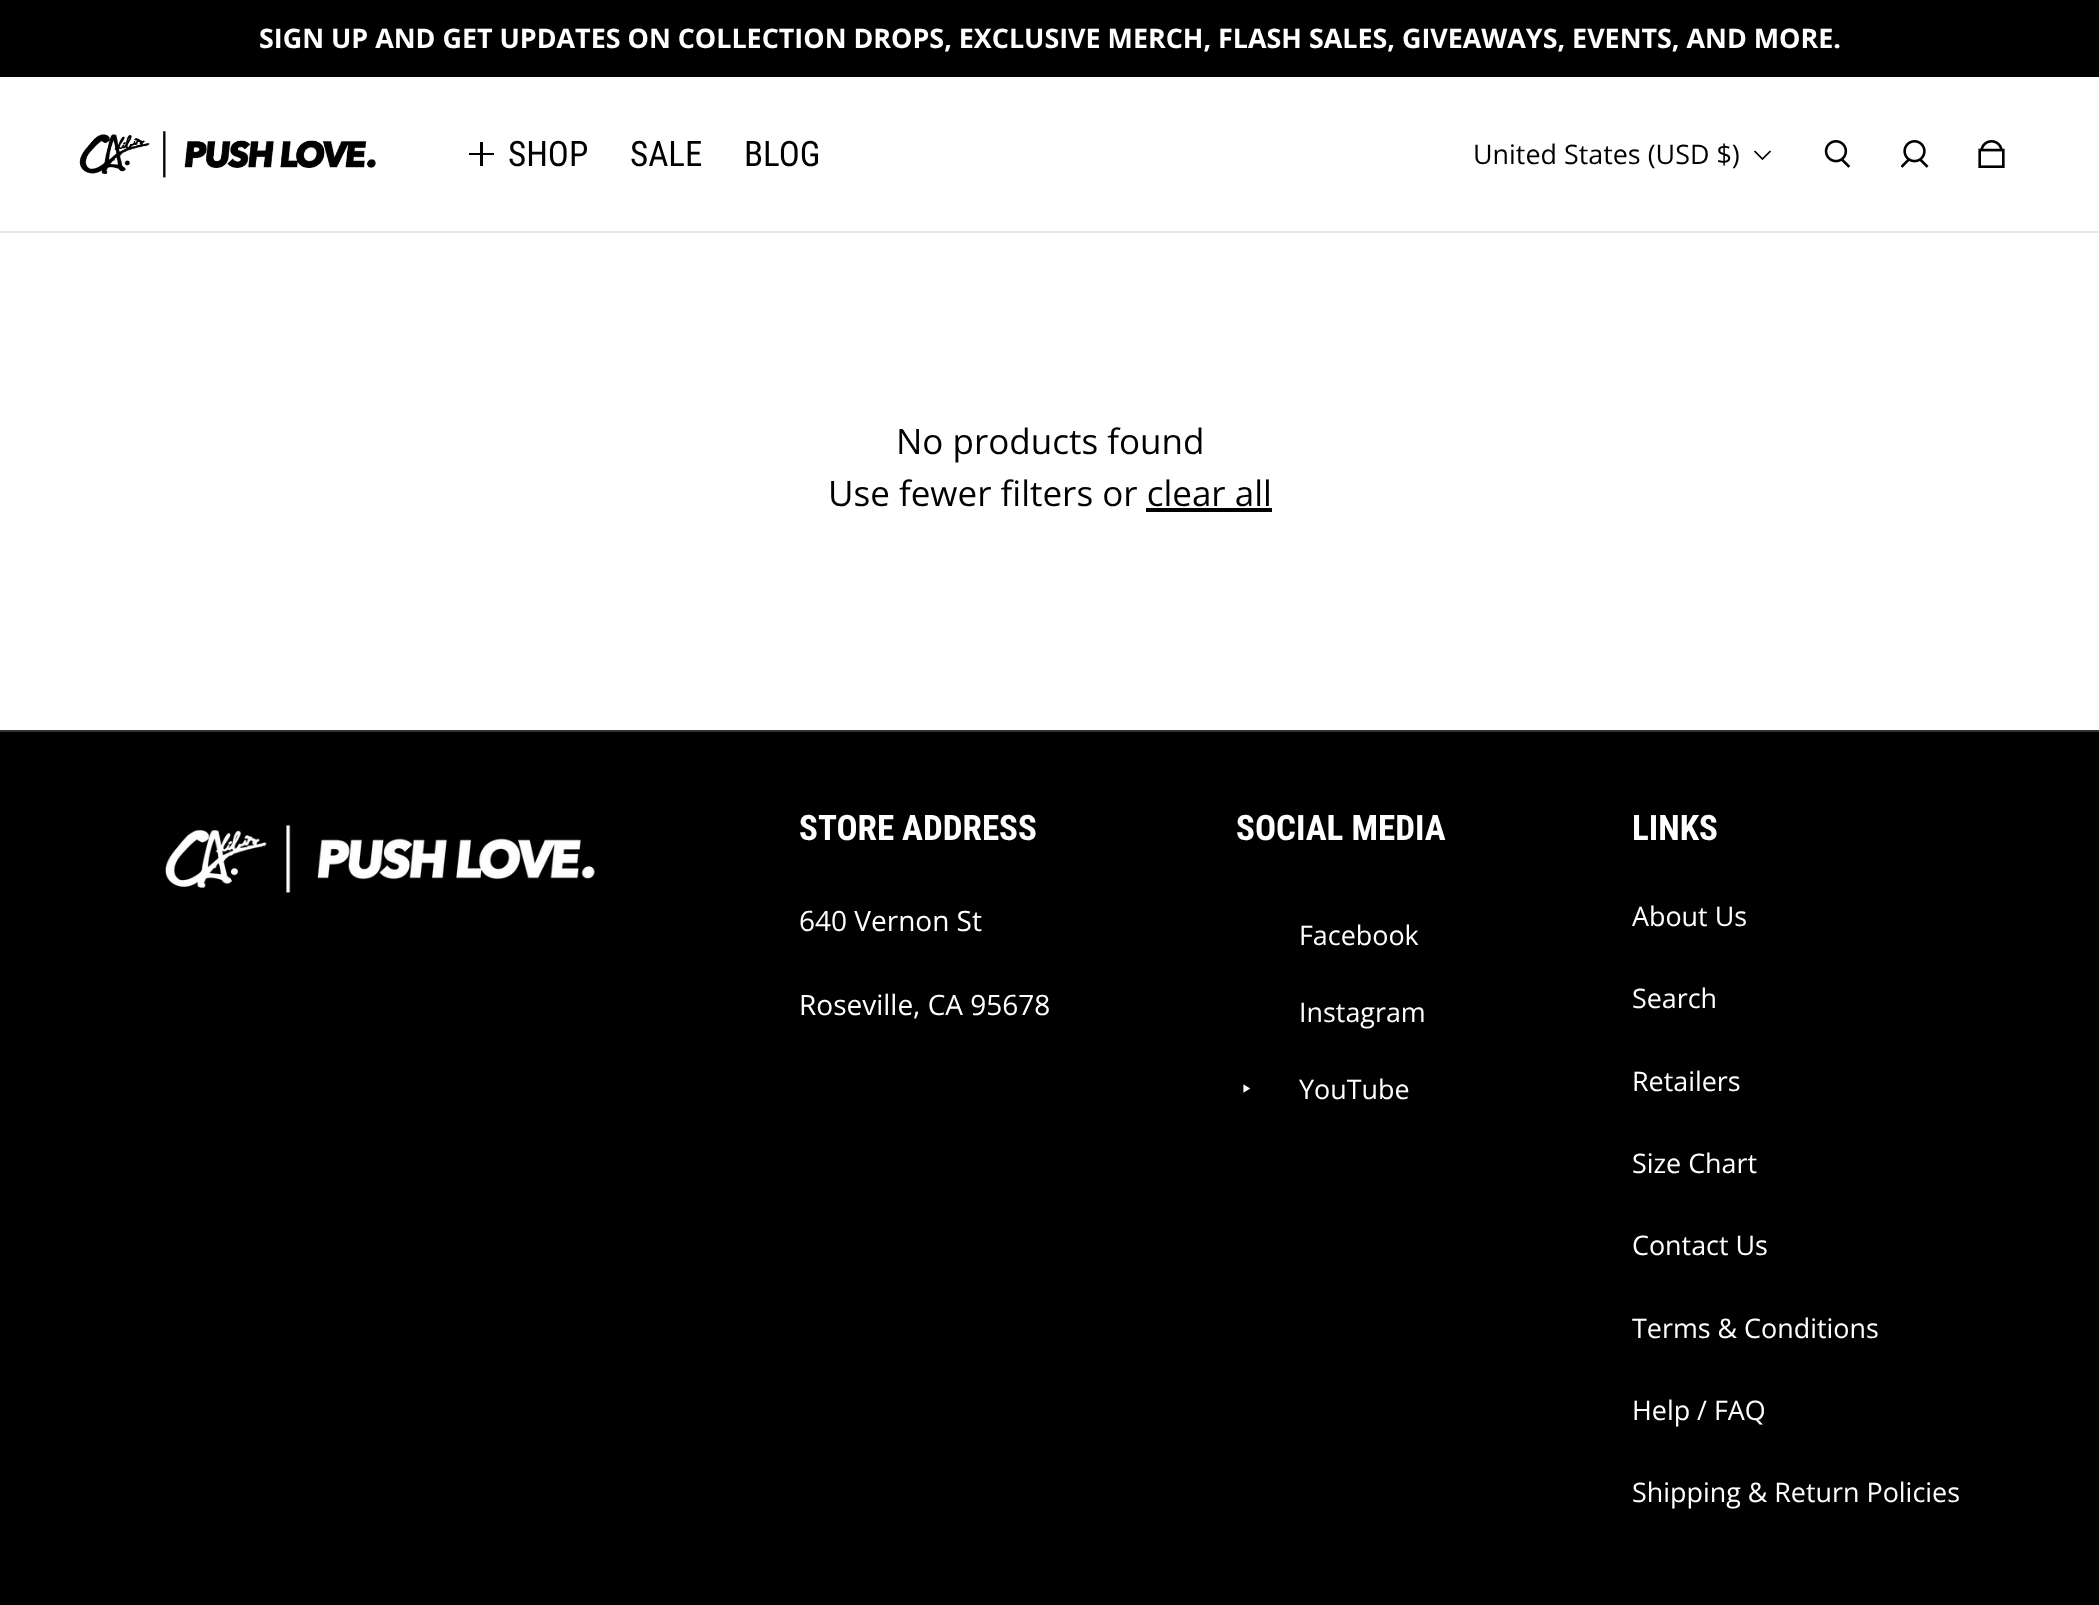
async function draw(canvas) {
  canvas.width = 2099
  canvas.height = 1605
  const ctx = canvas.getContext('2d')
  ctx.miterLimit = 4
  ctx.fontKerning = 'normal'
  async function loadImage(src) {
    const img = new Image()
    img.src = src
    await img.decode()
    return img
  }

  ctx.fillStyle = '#fff'
  ctx.fillRect(0, 0, 2099, 1605)
  ctx.fillStyle = '#000'
  ctx.fillRect(0, 0, 2099, 77)
  ctx.font = 'bold 26.88px Open Sans'
  ctx.fillStyle = '#fff'
  ctx.fillText('SIGN UP AND GET UPDATES ON COLLECTION DROPS, EXCLUSIVE MERCH, FLASH SALES, GIVEAWAYS, EVENTS, AND MORE.', 259, 48)
  ctx.fillStyle = '#e6e6e6'
  ctx.fillRect(0, 231, 2099, 2)
  ctx.drawImage(await loadImage('image0.png'), 79, 131, 297, 47)
  ctx.fillStyle = '#000'
  ctx.fillRect(469, 153, 25, 2)
  ctx.fillRect(480, 142, 3, 24)
  ctx.font = '35px Roboto Condensed'
  ctx.fillText('SHOP', 508, 166)
  ctx.fillText('SALE', 630, 166)
  ctx.fillText('BLOG', 744, 166)
  ctx.font = '26.88px Open Sans'
  ctx.fillText('United States (USD $)', 1473, 164)
  ctx.drawImage(await loadImage('image1.png'), 1754, 150, 17, 11)
  ctx.drawImage(await loadImage('image2.png'), 1824, 140, 27, 28)
  ctx.drawImage(await loadImage('image3.png'), 1901, 140, 28, 28)
  ctx.drawImage(await loadImage('image4.png'), 1978, 140, 27, 28)
  ctx.font = '35px Open Sans'
  ctx.fillText('No products found', 896, 454)
  ctx.fillText('Use fewer filters or clear all', 828, 506)
  ctx.fillRect(1146, 508, 126, 4)
  ctx.fillRect(0, 732, 2099, 873)
  ctx.fillStyle = '#333'
  ctx.fillRect(0, 730, 2099, 2)
  ctx.drawImage(await loadImage('image5.png'), 165, 824, 430, 69)
  ctx.font = 'bold 35px Roboto Condensed'
  ctx.fillStyle = '#fff'
  ctx.fillText('STORE ADDRESS', 799, 840)
  ctx.font = '28px Open Sans'
  ctx.fillText('640 Vernon St', 799, 931)
  ctx.fillText('Roseville, CA 95678', 799, 1015)
  ctx.font = 'bold 35px Roboto Condensed'
  ctx.fillText('SOCIAL MEDIA', 1236, 840)
  ctx.font = '26.88px Open Sans'
  ctx.fillText('Facebook', 1299, 945)
  ctx.fillText('Instagram', 1299, 1022)
  ctx.drawImage(await loadImage('image6.png'), 1243, 1084, 8, 9)
  ctx.fillText('YouTube', 1299, 1099)
  ctx.font = 'bold 35px Roboto Condensed'
  ctx.fillText('LINKS', 1632, 840)
  ctx.font = '26.88px Open Sans'
  ctx.fillText('About Us', 1632, 926)
  ctx.fillText('Search', 1632, 1008)
  ctx.fillText('Retailers', 1632, 1091)
  ctx.fillText('Size Chart', 1632, 1173)
  ctx.fillText('Contact Us', 1632, 1255)
  ctx.fillText('Terms & Conditions', 1632, 1338)
  ctx.fillText('Help / FAQ', 1632, 1420)
  ctx.fillText('Shipping & Return Policies', 1632, 1502)
}

draw(document.querySelector('canvas'))
